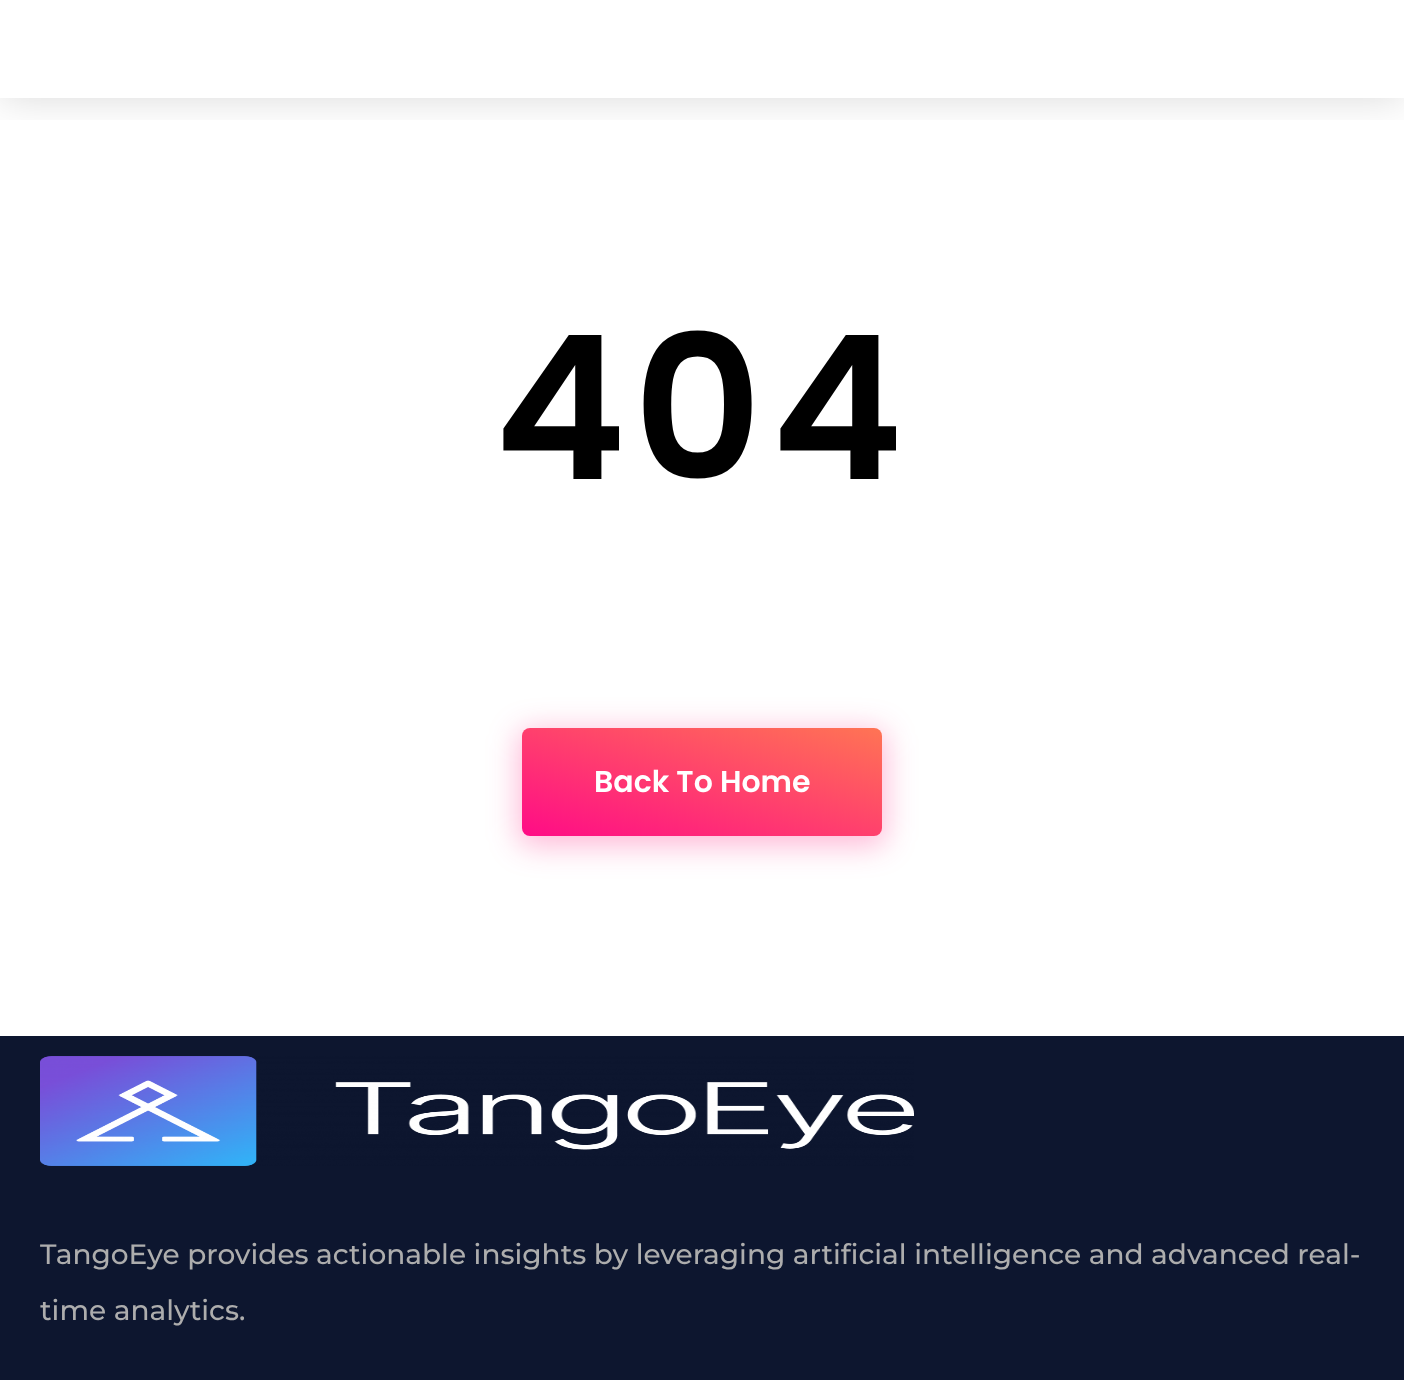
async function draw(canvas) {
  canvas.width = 1404
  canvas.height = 1380
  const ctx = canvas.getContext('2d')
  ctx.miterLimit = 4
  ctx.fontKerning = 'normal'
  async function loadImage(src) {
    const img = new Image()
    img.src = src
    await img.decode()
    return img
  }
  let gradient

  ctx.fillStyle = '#fff'
  ctx.fillRect(0, 0, 1404, 1380)
  ctx.save()
  ctx.beginPath()
  ctx.rect(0, 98, 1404, 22)
  ctx.clip()
  ctx.fillStyle = '#00000026'
  ctx.filter = 'blur(20px)'
  ctx.beginPath()
  ctx.rect(0, 0, 1404, 98)
  ctx.fill()
  ctx.filter = 'none'
  ctx.restore()
  ctx.letterSpacing = '10px'
  ctx.font = '600 200px Poppins'
  ctx.fillStyle = '#000'
  ctx.fillText('4', 494, 479)
  ctx.fillText('0', 633, 479)
  ctx.fillText('4', 771, 479)
  ctx.fillStyle = '#ff1c7d4d'
  ctx.filter = 'blur(15px)'
  ctx.beginPath()
  ctx.roundRect(518, 730, 368, 116, 12)
  ctx.fill()
  ctx.filter = 'none'
  gradient = ctx.createLinearGradient(672, 881, 732, 683)
  gradient.addColorStop(0, '#ff0c86')
  gradient.addColorStop(1, '#ff7454')
  ctx.fillStyle = gradient
  ctx.beginPath()
  ctx.roundRect(522, 728, 360, 108, 8)
  ctx.fill()
  ctx.letterSpacing = '0px'
  ctx.font = '600 30px Poppins'
  ctx.fillStyle = '#fff'
  ctx.fillText('Back To Home', 594, 792)
  ctx.fillStyle = '#0d162f'
  ctx.fillRect(0, 1036, 1404, 344)
  ctx.drawImage(await loadImage('image0.png'), 40, 1056, 874, 110)
  ctx.font = '500 28px Montserrat'
  ctx.fillStyle = '#adadad'
  ctx.fillText('TangoEye provides actionable insights by leveraging artificial intelligence and advanced real-', 40, 1264)
  ctx.fillText('time analytics.', 40, 1320)
}

draw(document.querySelector('canvas'))
